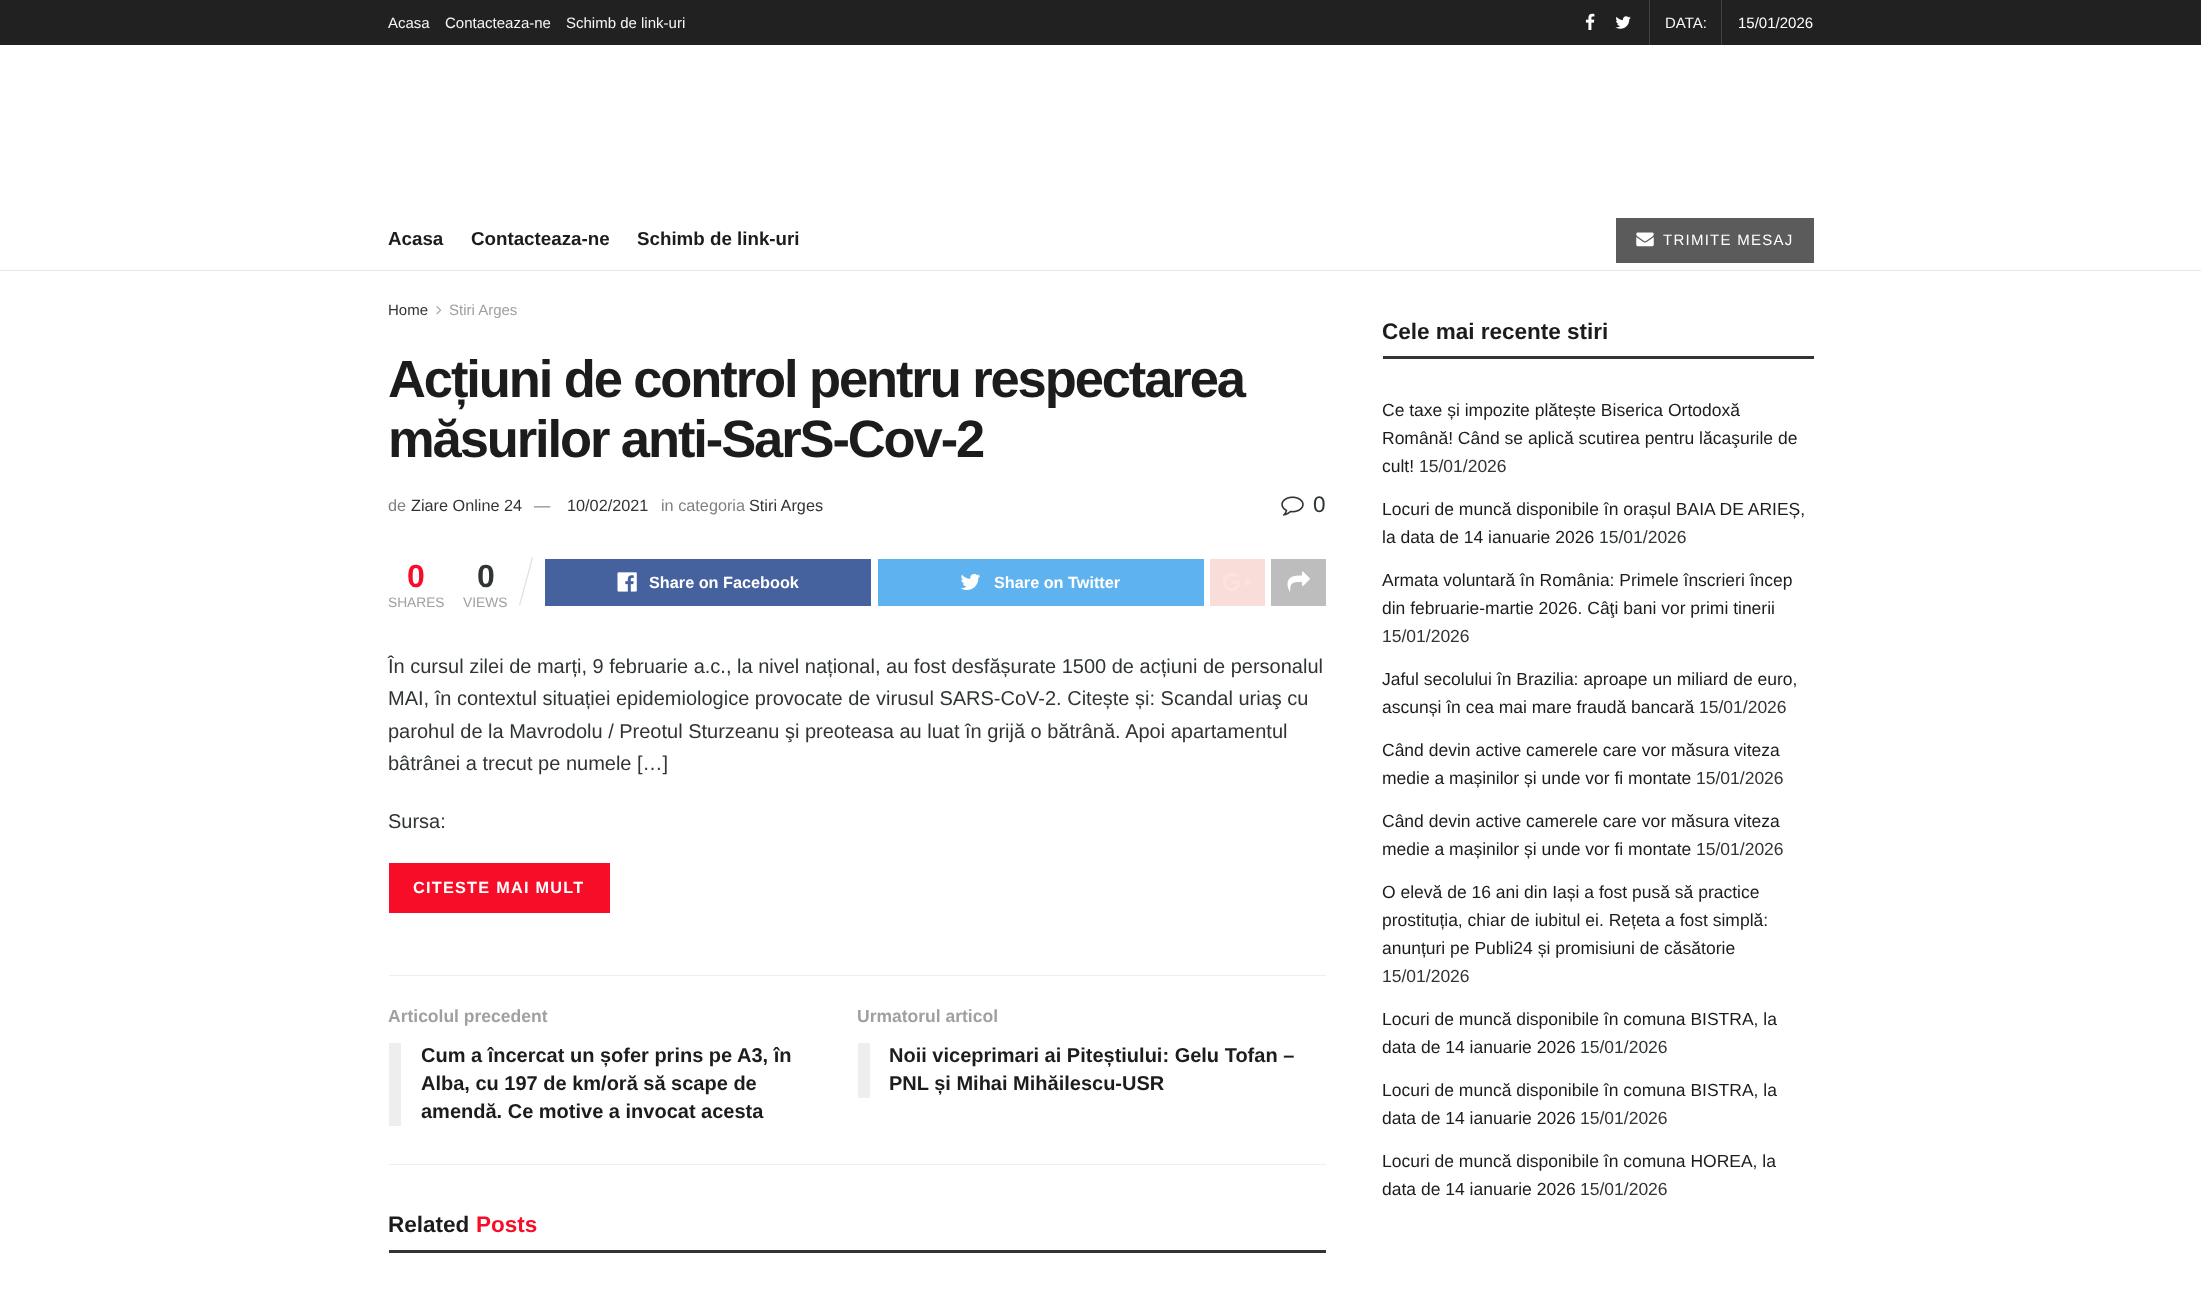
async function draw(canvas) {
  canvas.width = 2201
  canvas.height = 1313
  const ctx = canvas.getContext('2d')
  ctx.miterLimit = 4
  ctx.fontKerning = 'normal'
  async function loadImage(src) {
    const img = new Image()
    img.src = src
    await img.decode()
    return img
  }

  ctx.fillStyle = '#fff'
  ctx.fillRect(0, 0, 2201, 1313)
  ctx.fillStyle = '#212121'
  ctx.fillRect(0, 0, 2201, 45)
  ctx.fillStyle = '#424242'
  ctx.fillRect(1649, 0, 1, 45)
  ctx.font = '15px Liberation Sans'
  ctx.fillStyle = '#f5f5f5'
  ctx.fillText('Acasa', 388, 28)
  ctx.fillText('Contacteaza-ne', 445, 28)
  ctx.fillText('Schimb de link-uri', 566, 28)
  ctx.drawImage(await loadImage('image0.png'), 1585, 13, 10, 17)
  ctx.drawImage(await loadImage('image1.png'), 1615, 16, 16, 13)
  ctx.fillStyle = '#424242'
  ctx.fillRect(1721, 0, 1, 45)
  ctx.fillStyle = '#f5f5f5'
  ctx.fillText('DATA:', 1665, 28)
  ctx.fillStyle = '#fff'
  ctx.fillText('15/01/2026', 1738, 28)
  ctx.fillStyle = '#e8e8e8'
  ctx.fillRect(0, 270, 2201, 1)
  ctx.font = 'bold 18.75px Liberation Sans'
  ctx.fillStyle = '#1c1c1c'
  ctx.fillText('Acasa', 388, 245)
  ctx.fillText('Contacteaza-ne', 471, 245)
  ctx.fillText('Schimb de link-uri', 637, 245)
  ctx.fillStyle = '#5b5b5b'
  ctx.fillRect(1616, 218, 198, 45)
  ctx.drawImage(await loadImage('image2.png'), 1636, 232, 18, 15)
  ctx.letterSpacing = '1.25px'
  ctx.font = '15px Liberation Sans'
  ctx.fillStyle = '#fff'
  ctx.fillText('TRIMITE MESAJ', 1663, 245)
  ctx.letterSpacing = '0px'
  ctx.fillStyle = '#303435'
  ctx.fillText('Home', 388, 315)
  ctx.drawImage(await loadImage('image3.png'), 436, 306, 6, 9)
  ctx.fillStyle = '#a0a0a0'
  ctx.fillText('Stiri Arges', 449, 315)
  ctx.letterSpacing = '-2.1px'
  ctx.font = 'bold 52.5px Liberation Sans'
  ctx.fillStyle = '#1c1c1c'
  ctx.fillText('Acțiuni de control pentru respectarea', 388, 397)
  ctx.fillText('măsurilor anti-SarS-Cov-2', 388, 457)
  ctx.letterSpacing = '0px'
  ctx.font = '16.25px Liberation Sans'
  ctx.fillStyle = '#808080'
  ctx.fillText('de', 388, 511)
  ctx.fillStyle = '#303435'
  ctx.fillText('Ziare Online 24', 411, 511)
  ctx.fillStyle = '#808080'
  ctx.fillText('—', 534, 511)
  ctx.fillStyle = '#303435'
  ctx.fillText('10/02/2021', 567, 511)
  ctx.fillStyle = '#808080'
  ctx.fillText('in categoria', 661, 511)
  ctx.fillStyle = '#303435'
  ctx.fillText('Stiri Arges', 749, 511)
  ctx.drawImage(await loadImage('image4.png'), 1281, 496, 23, 20)
  ctx.font = '22.5px Liberation Sans'
  ctx.fillText('0', 1313, 512)
  ctx.font = 'bold 32px Liberation Sans'
  ctx.fillStyle = '#f70d28'
  ctx.fillText('0', 407, 587)
  ctx.font = '13.75px Liberation Sans'
  ctx.fillStyle = '#a0a0a0'
  ctx.fillText('SHARES', 388, 607)
  ctx.font = 'bold 32px Liberation Sans'
  ctx.fillStyle = '#303435'
  ctx.fillText('0', 477, 587)
  ctx.fillStyle = '#e0e0e0'
  ctx.beginPath()
  ctx.moveTo(532, 557)
  ctx.lineTo(533, 558)
  ctx.lineTo(520, 606)
  ctx.lineTo(519, 605)
  ctx.closePath()
  ctx.fill()
  ctx.font = '13.75px Liberation Sans'
  ctx.fillStyle = '#a0a0a0'
  ctx.fillText('VIEWS', 463, 607)
  ctx.fillStyle = '#45629f'
  ctx.fillRect(545, 559, 326, 47)
  ctx.drawImage(await loadImage('image5.png'), 617, 572, 20, 20)
  ctx.font = 'bold 16.25px Liberation Sans'
  ctx.fillStyle = '#fff'
  ctx.fillText('Share on Facebook', 649, 588)
  ctx.fillStyle = '#5eb2ef'
  ctx.fillRect(878, 559, 326, 47)
  ctx.drawImage(await loadImage('image6.png'), 960, 573, 21, 17)
  ctx.fillStyle = '#fff'
  ctx.fillText('Share on Twitter', 994, 588)
  ctx.fillStyle = '#f9ddd9'
  ctx.fillRect(1210, 559, 55, 47)
  ctx.drawImage(await loadImage('image7.png'), 1223, 573, 28, 18)
  ctx.fillStyle = '#bdbdbd'
  ctx.fillRect(1271, 559, 55, 47)
  ctx.drawImage(await loadImage('image8.png'), 1287, 571, 23, 21)
  ctx.font = '20px Liberation Sans'
  ctx.fillStyle = '#303435'
  ctx.fillText('În cursul zilei de marți, 9 februarie a.c., la nivel național, au fost desfășurate 1500 de acțiuni de personalul', 388, 673)
  ctx.fillText('MAI, în contextul situației epidemiologice provocate de virusul SARS-CoV-2. Citește și: Scandal uriaş cu', 388, 705)
  ctx.fillText('parohul de la Mavrodolu / Preotul Sturzeanu şi preoteasa au luat în grijă o bătrână. Apoi apartamentul', 388, 738)
  ctx.fillText('bâtrânei a trecut pe numele […]', 388, 770)
  ctx.fillText('Sursa:', 388, 828)
  ctx.fillStyle = '#f70d28'
  ctx.fillRect(389, 863, 221, 50)
  ctx.letterSpacing = '1.25px'
  ctx.font = 'bold 16.25px Liberation Sans'
  ctx.fillStyle = '#fff'
  ctx.fillText('CITESTE MAI MULT', 413, 893)
  ctx.fillStyle = '#eee'
  ctx.fillRect(389, 975, 937, 1)
  ctx.fillRect(389, 1164, 937, 1)
  ctx.letterSpacing = '0px'
  ctx.font = 'bold 17.5px Liberation Sans'
  ctx.fillStyle = '#a0a0a0'
  ctx.fillText('Articolul precedent', 388, 1022)
  ctx.fillStyle = '#eee'
  ctx.fillRect(389, 1043, 12, 83)
  ctx.font = 'bold 20px Liberation Sans'
  ctx.fillStyle = '#1c1c1c'
  ctx.fillText('Cum a încercat un șofer prins pe A3, în', 421, 1062)
  ctx.fillText('Alba, cu 197 de km/oră să scape de', 421, 1090)
  ctx.fillText('amendă. Ce motive a invocat acesta', 421, 1118)
  ctx.font = 'bold 17.5px Liberation Sans'
  ctx.fillStyle = '#a0a0a0'
  ctx.fillText('Urmatorul articol', 857, 1022)
  ctx.fillStyle = '#eee'
  ctx.fillRect(858, 1043, 12, 55)
  ctx.font = 'bold 20px Liberation Sans'
  ctx.fillStyle = '#1c1c1c'
  ctx.fillText('Noii viceprimari ai Piteștiului: Gelu Tofan –', 889, 1062)
  ctx.fillText('PNL și Mihai Mihăilescu-USR', 889, 1090)
  ctx.fillStyle = '#303435'
  ctx.fillRect(389, 1250, 937, 3)
  ctx.font = 'bold 22.5px Liberation Sans'
  ctx.fillStyle = '#1c1c1c'
  ctx.fillText('Related', 388, 1232)
  ctx.fillStyle = '#f70d28'
  ctx.fillText('Posts', 476, 1232)
  ctx.fillStyle = '#303435'
  ctx.fillRect(1383, 356, 431, 3)
  ctx.fillStyle = '#1c1c1c'
  ctx.fillText('Cele mai recente stiri', 1382, 339)
  ctx.font = '17.5px Liberation Sans'
  ctx.fillText('Ce taxe și impozite plătește Biserica Ortodoxă', 1382, 416)
  ctx.fillText('Română! Când se aplică scutirea pentru lăcaşurile de', 1382, 444)
  ctx.fillText('cult!', 1382, 472)
  ctx.fillStyle = '#303435'
  ctx.fillText('15/01/2026', 1419, 472)
  ctx.fillStyle = '#1c1c1c'
  ctx.fillText('Locuri de muncă disponibile în orașul BAIA DE ARIEȘ,', 1382, 515)
  ctx.fillText('la data de 14 ianuarie 2026', 1382, 543)
  ctx.fillStyle = '#303435'
  ctx.fillText('15/01/2026', 1599, 543)
  ctx.fillStyle = '#1c1c1c'
  ctx.fillText('Armata voluntară în România: Primele înscrieri încep', 1382, 586)
  ctx.fillText('din februarie-martie 2026. Câţi bani vor primi tinerii', 1382, 614)
  ctx.fillStyle = '#303435'
  ctx.fillText('15/01/2026', 1382, 642)
  ctx.fillStyle = '#1c1c1c'
  ctx.fillText('Jaful secolului în Brazilia: aproape un miliard de euro,', 1382, 685)
  ctx.fillText('ascunși în cea mai mare fraudă bancară', 1382, 713)
  ctx.fillStyle = '#303435'
  ctx.fillText('15/01/2026', 1699, 713)
  ctx.fillStyle = '#1c1c1c'
  ctx.fillText('Când devin active camerele care vor măsura viteza', 1382, 756)
  ctx.fillText('medie a mașinilor și unde vor fi montate', 1382, 784)
  ctx.fillStyle = '#303435'
  ctx.fillText('15/01/2026', 1696, 784)
  ctx.fillStyle = '#1c1c1c'
  ctx.fillText('Când devin active camerele care vor măsura viteza', 1382, 827)
  ctx.fillText('medie a mașinilor și unde vor fi montate', 1382, 855)
  ctx.fillStyle = '#303435'
  ctx.fillText('15/01/2026', 1696, 855)
  ctx.fillStyle = '#1c1c1c'
  ctx.fillText('O elevă de 16 ani din Iași a fost pusă să practice', 1382, 898)
  ctx.fillText('prostituția, chiar de iubitul ei. Rețeta a fost simplă:', 1382, 926)
  ctx.fillText('anunțuri pe Publi24 și promisiuni de căsătorie', 1382, 954)
  ctx.fillStyle = '#303435'
  ctx.fillText('15/01/2026', 1382, 982)
  ctx.fillStyle = '#1c1c1c'
  ctx.fillText('Locuri de muncă disponibile în comuna BISTRA, la', 1382, 1025)
  ctx.fillText('data de 14 ianuarie 2026', 1382, 1053)
  ctx.fillStyle = '#303435'
  ctx.fillText('15/01/2026', 1580, 1053)
  ctx.fillStyle = '#1c1c1c'
  ctx.fillText('Locuri de muncă disponibile în comuna BISTRA, la', 1382, 1096)
  ctx.fillText('data de 14 ianuarie 2026', 1382, 1124)
  ctx.fillStyle = '#303435'
  ctx.fillText('15/01/2026', 1580, 1124)
  ctx.fillStyle = '#1c1c1c'
  ctx.fillText('Locuri de muncă disponibile în comuna HOREA, la', 1382, 1167)
  ctx.fillText('data de 14 ianuarie 2026', 1382, 1195)
  ctx.fillStyle = '#303435'
  ctx.fillText('15/01/2026', 1580, 1195)
}

draw(document.querySelector('canvas'))
